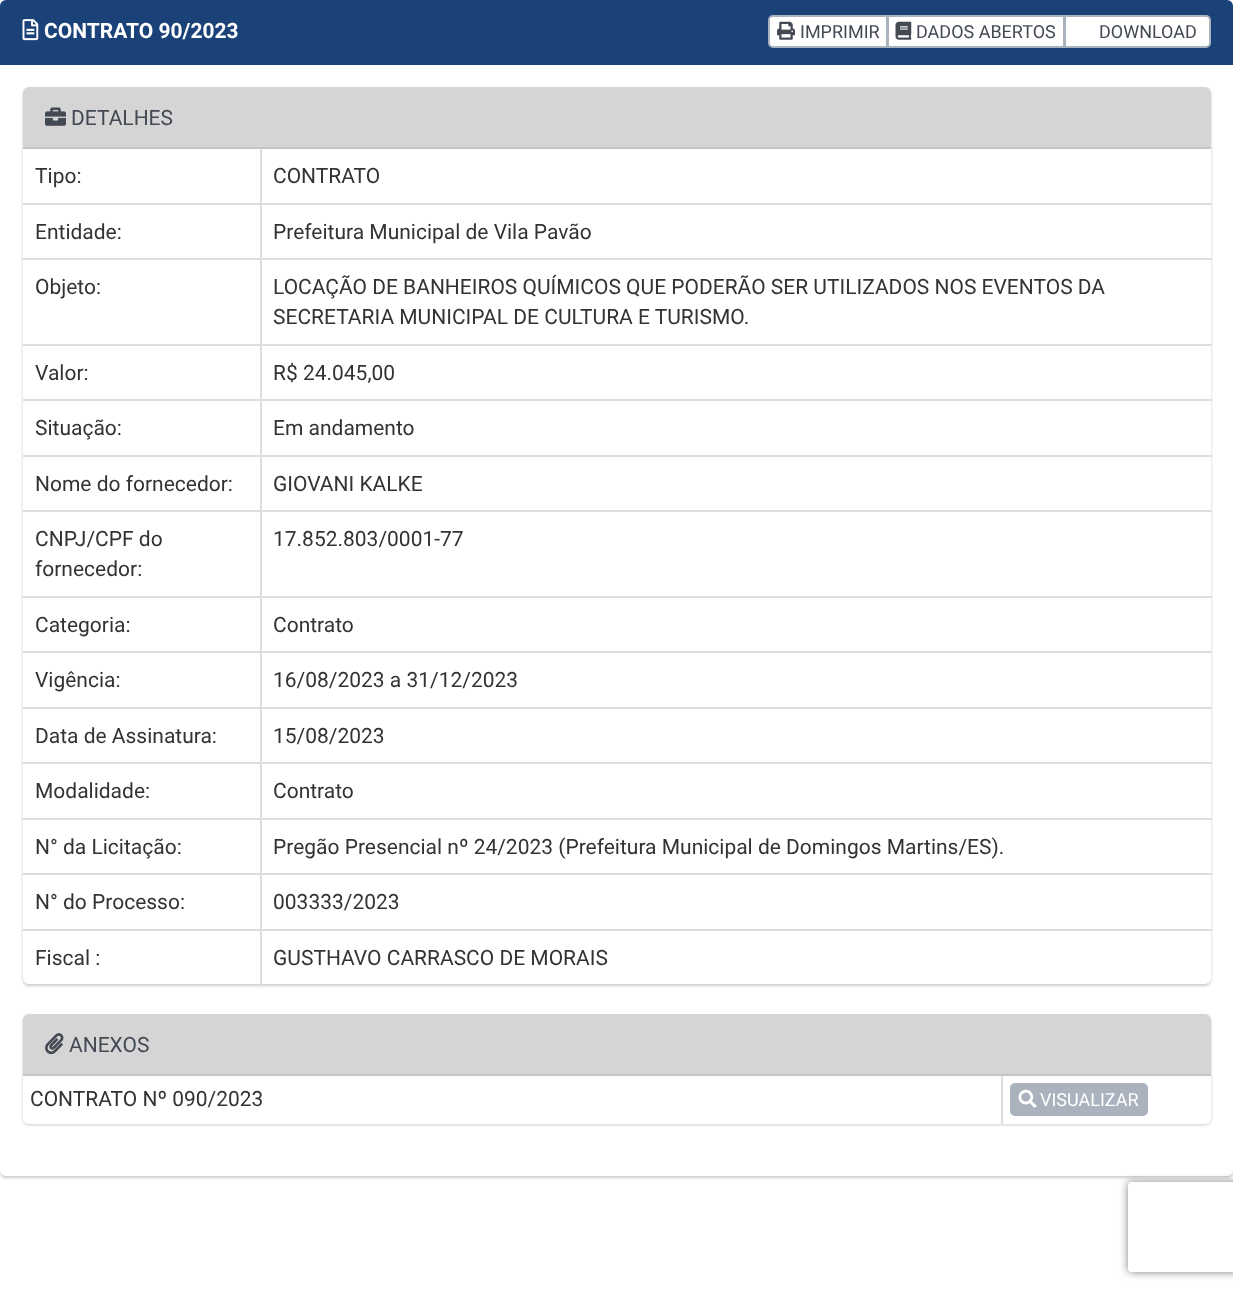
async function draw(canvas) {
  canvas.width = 1233
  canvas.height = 1293
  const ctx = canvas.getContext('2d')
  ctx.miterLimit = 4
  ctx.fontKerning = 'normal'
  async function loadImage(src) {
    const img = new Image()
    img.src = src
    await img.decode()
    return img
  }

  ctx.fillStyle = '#fff'
  ctx.fillRect(0, 0, 1233, 1293)
  ctx.fillStyle = '#00000033'
  ctx.filter = 'blur(1.5px)'
  ctx.beginPath()
  ctx.roundRect(0, 2, 1233, 1176, 6)
  ctx.fill()
  ctx.filter = 'none'
  ctx.fillStyle = '#fff'
  ctx.beginPath()
  ctx.roundRect(0, 0, 1233, 1176, 6)
  ctx.fill()
  ctx.fillStyle = '#1a4278'
  ctx.beginPath()
  ctx.roundRect(0, 0, 1233, 65, [6, 6, 0, 0])
  ctx.fill()
  ctx.drawImage(await loadImage('image0.png'), 22, 19, 17, 22)
  ctx.font = 'bold 21px Roboto'
  ctx.fillStyle = '#fff'
  ctx.fillText('CONTRATO 90/2023', 44, 38)
  ctx.beginPath()
  ctx.roundRect(769, 16, 118, 31, [4, 0, 0, 4])
  ctx.fill()
  ctx.strokeStyle = '#aab2bd'
  ctx.lineWidth = 2
  ctx.stroke()
  ctx.drawImage(await loadImage('image1.png'), 777, 21, 18, 19)
  ctx.font = '18px Roboto'
  ctx.fillStyle = '#434a54'
  ctx.fillText('IMPRIMIR', 800, 38)
  ctx.fillStyle = '#fff'
  ctx.beginPath()
  ctx.rect(888, 16, 176, 31)
  ctx.fill()
  ctx.stroke()
  ctx.drawImage(await loadImage('image2.png'), 895, 21, 17, 19)
  ctx.fillStyle = '#434a54'
  ctx.fillText('DADOS ABERTOS', 916, 38)
  ctx.fillStyle = '#fff'
  ctx.beginPath()
  ctx.roundRect(1065, 16, 145, 31, [0, 4, 4, 0])
  ctx.fill()
  ctx.stroke()
  ctx.fillStyle = '#434a54'
  ctx.fillText('DOWNLOAD', 1099, 38)
  ctx.fillStyle = '#00000033'
  ctx.filter = 'blur(1.5px)'
  ctx.beginPath()
  ctx.roundRect(23, 89, 1188, 897, 6)
  ctx.fill()
  ctx.filter = 'none'
  ctx.fillStyle = '#fff'
  ctx.beginPath()
  ctx.roundRect(23, 87, 1188, 897, 6)
  ctx.fill()
  ctx.fillStyle = '#d5d5d5'
  ctx.beginPath()
  ctx.roundRect(23, 87, 1188, 62, [6, 6, 0, 0])
  ctx.fill()
  ctx.fillStyle = '#c5c5c5'
  ctx.fillRect(23, 147, 1188, 2)
  ctx.drawImage(await loadImage('image3.png'), 45, 107, 21, 19)
  ctx.font = '21px Roboto'
  ctx.fillStyle = '#434a54'
  ctx.fillText('DETALHES', 71, 125)
  ctx.fillStyle = '#333'
  ctx.fillText('Tipo:', 35, 183)
  ctx.fillStyle = '#ddd'
  ctx.fillRect(260, 203, 952, 2)
  ctx.fillRect(260, 258, 952, 2)
  ctx.fillRect(260, 344, 952, 2)
  ctx.fillRect(260, 399, 952, 2)
  ctx.fillRect(260, 455, 952, 2)
  ctx.fillRect(260, 510, 952, 2)
  ctx.fillRect(260, 596, 952, 2)
  ctx.fillRect(260, 651, 952, 2)
  ctx.fillRect(260, 707, 952, 2)
  ctx.fillRect(260, 762, 952, 2)
  ctx.fillRect(260, 818, 952, 2)
  ctx.fillRect(260, 873, 952, 2)
  ctx.fillRect(260, 929, 952, 2)
  ctx.fillRect(260, 929, 2, 57)
  ctx.fillRect(23, 929, 238, 2)
  ctx.fillRect(260, 873, 2, 57)
  ctx.fillRect(23, 873, 238, 2)
  ctx.fillRect(260, 818, 2, 57)
  ctx.fillRect(23, 818, 238, 2)
  ctx.fillRect(260, 762, 2, 57)
  ctx.fillRect(23, 762, 238, 2)
  ctx.fillRect(260, 707, 2, 57)
  ctx.fillRect(23, 707, 238, 2)
  ctx.fillRect(260, 651, 2, 57)
  ctx.fillRect(23, 651, 238, 2)
  ctx.fillRect(260, 596, 2, 57)
  ctx.fillRect(23, 596, 238, 2)
  ctx.fillRect(260, 510, 2, 87)
  ctx.fillRect(23, 510, 238, 2)
  ctx.fillRect(260, 455, 2, 57)
  ctx.fillRect(23, 455, 238, 2)
  ctx.fillRect(260, 399, 2, 57)
  ctx.fillRect(23, 399, 238, 2)
  ctx.fillRect(260, 344, 2, 57)
  ctx.fillRect(23, 344, 238, 2)
  ctx.fillRect(260, 258, 2, 87)
  ctx.fillRect(23, 258, 238, 2)
  ctx.fillRect(260, 203, 2, 57)
  ctx.fillRect(23, 203, 238, 2)
  ctx.fillRect(260, 149, 2, 55)
  ctx.fillStyle = '#333'
  ctx.fillText('CONTRATO', 273, 183)
  ctx.fillText('Entidade:', 35, 239)
  ctx.fillText('Prefeitura Municipal de Vila Pavão', 273, 239)
  ctx.fillText('Objeto:', 35, 294)
  ctx.fillText('LOCAÇÃO DE BANHEIROS QUÍMICOS QUE PODERÃO SER UTILIZADOS NOS EVENTOS DA', 273, 294)
  ctx.fillText('SECRETARIA MUNICIPAL DE CULTURA E TURISMO.', 273, 324)
  ctx.fillText('Valor:', 35, 380)
  ctx.fillText('R$ 24.045,00', 273, 380)
  ctx.fillText('Situação:', 35, 435)
  ctx.fillText('Em andamento', 273, 435)
  ctx.fillText('Nome do fornecedor:', 35, 491)
  ctx.fillText('GIOVANI KALKE', 273, 491)
  ctx.fillText('CNPJ/CPF do', 35, 546)
  ctx.fillText('fornecedor:', 35, 576)
  ctx.fillText('17.852.803/0001-77', 273, 546)
  ctx.fillText('Categoria:', 35, 632)
  ctx.fillText('Contrato', 273, 632)
  ctx.fillText('Vigência:', 35, 687)
  ctx.fillText('16/08/2023 a 31/12/2023', 273, 687)
  ctx.fillText('Data de Assinatura:', 35, 743)
  ctx.fillText('15/08/2023', 273, 743)
  ctx.fillText('Modalidade:', 35, 798)
  ctx.fillText('Contrato', 273, 798)
  ctx.fillText('N° da Licitação:', 35, 854)
  ctx.fillText('Pregão Presencial nº 24/2023 (Prefeitura Municipal de Domingos Martins/ES).', 273, 854)
  ctx.fillText('N° do Processo:', 35, 909)
  ctx.fillText('003333/2023', 273, 909)
  ctx.fillText('Fiscal :', 35, 965)
  ctx.fillText('GUSTHAVO CARRASCO DE MORAIS', 273, 965)
  ctx.fillStyle = '#00000033'
  ctx.filter = 'blur(1.5px)'
  ctx.beginPath()
  ctx.roundRect(23, 1016, 1188, 109, 6)
  ctx.fill()
  ctx.filter = 'none'
  ctx.fillStyle = '#fff'
  ctx.beginPath()
  ctx.roundRect(23, 1014, 1188, 110, 6)
  ctx.fill()
  ctx.fillStyle = '#d5d5d5'
  ctx.beginPath()
  ctx.roundRect(23, 1014, 1188, 62, [6, 6, 0, 0])
  ctx.fill()
  ctx.fillStyle = '#c5c5c5'
  ctx.fillRect(23, 1074, 1188, 2)
  ctx.drawImage(await loadImage('image4.png'), 45, 1033, 19, 22)
  ctx.fillStyle = '#434a54'
  ctx.fillText('ANEXOS', 69, 1052)
  ctx.fillStyle = '#333'
  ctx.fillText('CONTRATO Nº 090/2023', 30, 1106)
  ctx.fillStyle = '#ddd'
  ctx.fillRect(1001, 1076, 2, 49)
  ctx.fillStyle = '#aab2bd'
  ctx.beginPath()
  ctx.roundRect(1011, 1084, 136, 31, 4)
  ctx.fill()
  ctx.stroke()
  ctx.drawImage(await loadImage('image5.png'), 1018, 1089, 19, 19)
  ctx.font = '18px Roboto'
  ctx.fillStyle = '#fff'
  ctx.fillText('VISUALIZAR', 1040, 1106)
  ctx.save()
  ctx.beginPath()
  ctx.moveTo(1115, 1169)
  ctx.lineTo(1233, 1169)
  ctx.lineTo(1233, 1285)
  ctx.lineTo(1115, 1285)
  ctx.closePath()
  ctx.moveTo(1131, 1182)
  ctx.lineTo(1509, 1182)
  ctx.bezierCurveTo(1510.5, 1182, 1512, 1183.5, 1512, 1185)
  ctx.lineTo(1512, 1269)
  ctx.bezierCurveTo(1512, 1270.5, 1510.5, 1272, 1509, 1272)
  ctx.lineTo(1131, 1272)
  ctx.bezierCurveTo(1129.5, 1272, 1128, 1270.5, 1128, 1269)
  ctx.lineTo(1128, 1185)
  ctx.bezierCurveTo(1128, 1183.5, 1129.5, 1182, 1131, 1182)
  ctx.closePath()
  ctx.clip('evenodd')
  ctx.fillStyle = '#808080'
  ctx.filter = 'blur(4px)'
  ctx.beginPath()
  ctx.roundRect(1128, 1182, 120, 90, 3)
  ctx.fill()
  ctx.filter = 'none'
  ctx.restore()
}

draw(document.querySelector('canvas'))
